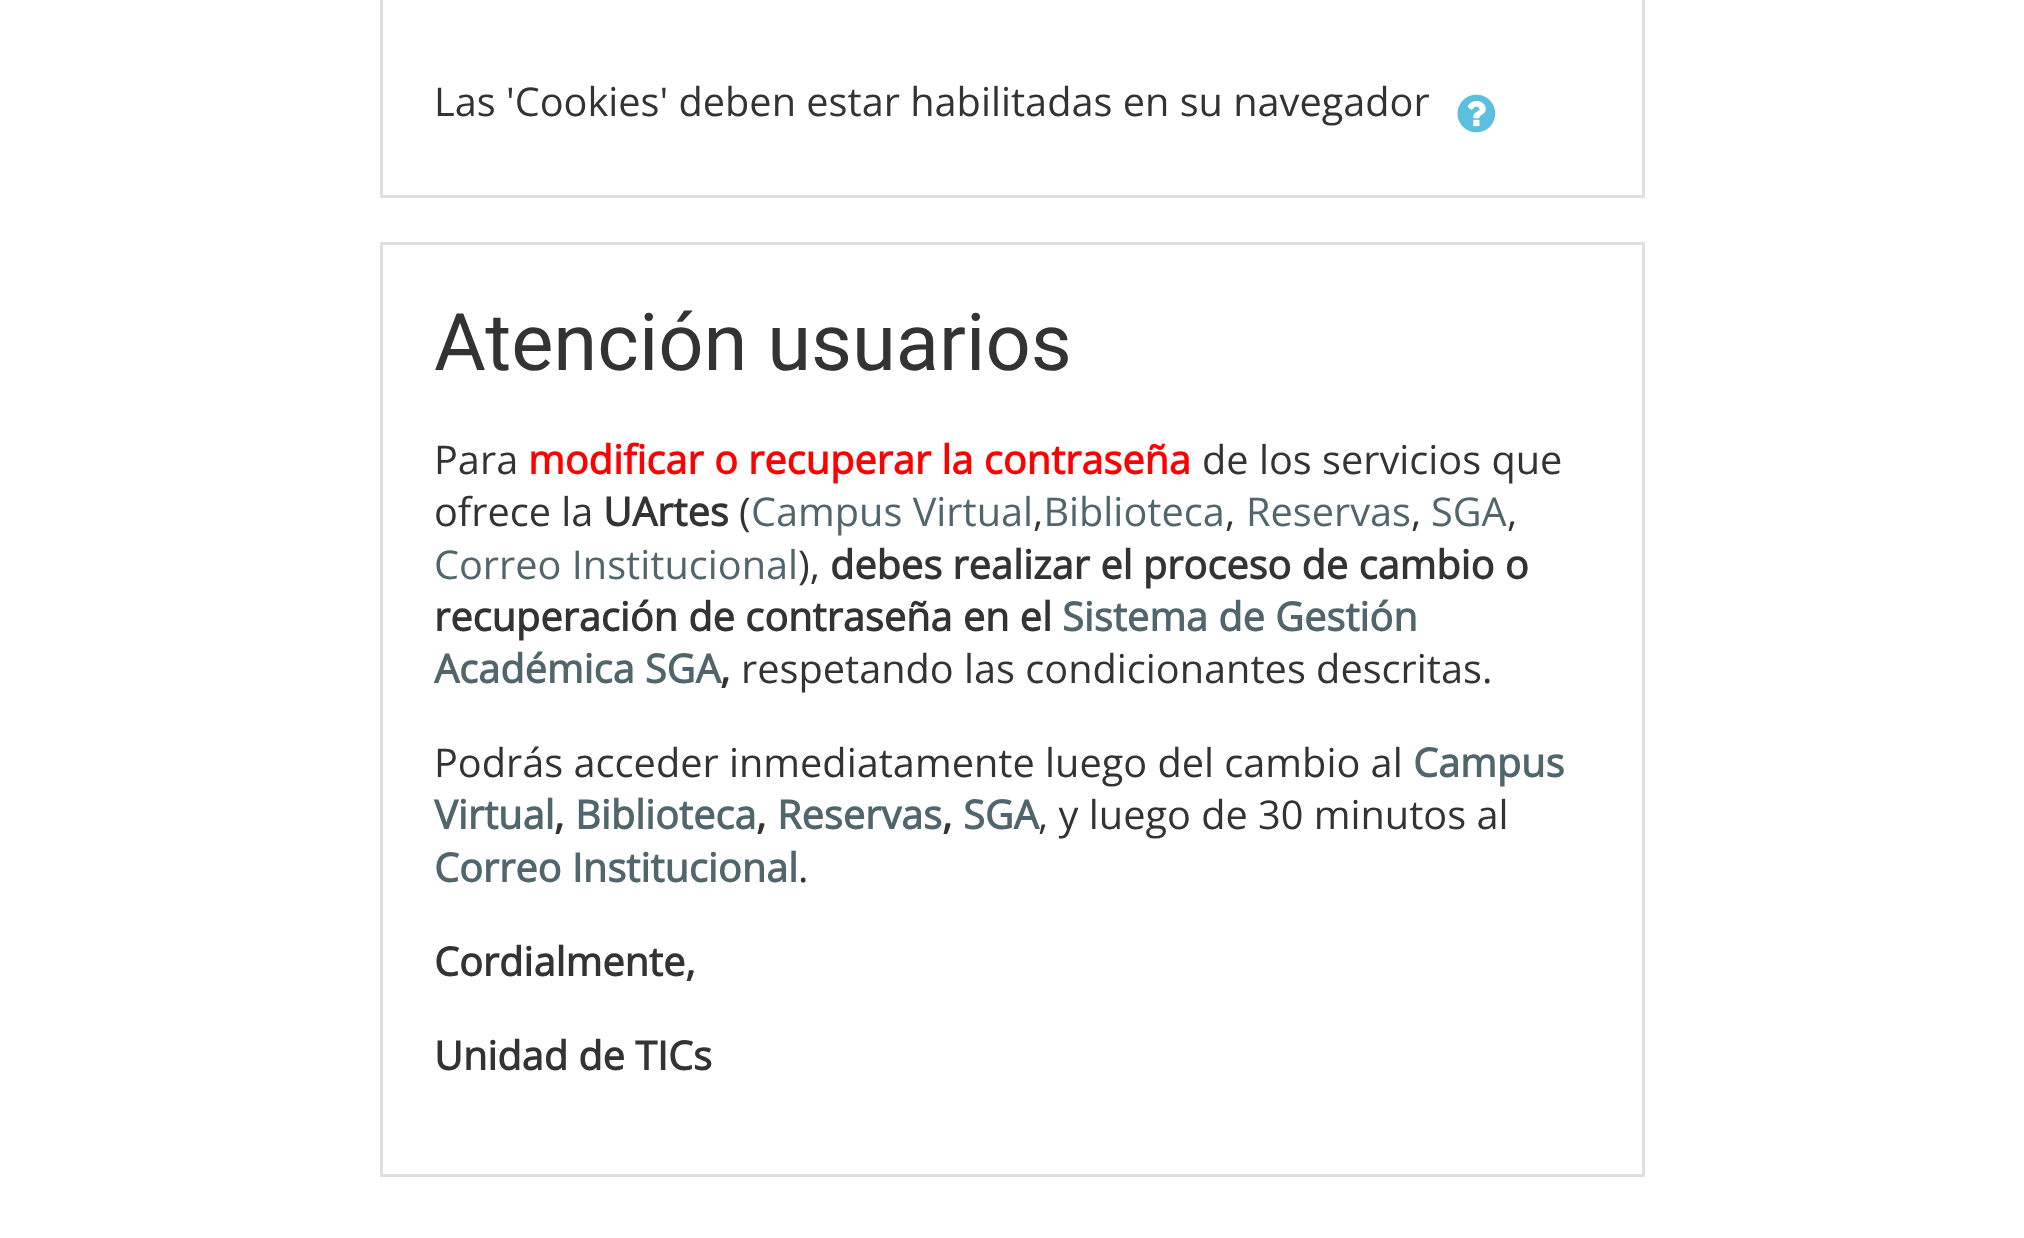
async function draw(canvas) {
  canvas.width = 2024
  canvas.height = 1238
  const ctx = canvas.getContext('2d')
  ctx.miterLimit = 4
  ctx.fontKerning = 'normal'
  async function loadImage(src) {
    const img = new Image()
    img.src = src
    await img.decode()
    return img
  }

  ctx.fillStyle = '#fff'
  ctx.fillRect(0, 0, 2024, 1238)
  ctx.strokeStyle = '#dfdfdf'
  ctx.lineWidth = 3
  ctx.strokeRect(381.5, -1.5, 1262, 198)
  ctx.font = '39.7px Open Sans'
  ctx.fillStyle = '#333'
  ctx.fillText('Las \'Cookies\' deben estar habilitadas en su navegador', 434, 116)
  ctx.drawImage(await loadImage('image0.png'), 1457, 94, 39, 39)
  ctx.strokeRect(381.5, 243.5, 1262, 932)
  ctx.font = '79.5px Roboto'
  ctx.fillText('Atención usuarios', 434, 370)
  ctx.font = '39.7px Open Sans'
  ctx.fillText('Para', 434, 474)
  ctx.font = 'bold 39.7px Open Sans'
  ctx.fillStyle = '#f00'
  ctx.fillText('modificar o recuperar la contraseña', 528, 474)
  ctx.font = '39.7px Open Sans'
  ctx.fillStyle = '#333'
  ctx.fillText('de los servicios que', 1202, 474)
  ctx.fillText('ofrece la', 434, 526)
  ctx.font = 'bold 39.7px Open Sans'
  ctx.fillText('UArtes', 603, 526)
  ctx.font = '39.7px Open Sans'
  ctx.fillText('(', 739, 526)
  ctx.fillStyle = '#51666c'
  ctx.fillText('Campus Virtual Biblioteca', 751, 526)
  ctx.fillText('Reservas', 1246, 526)
  ctx.fillText('SGA', 1431, 526)
  ctx.fillStyle = '#333'
  ctx.fillText(',', 1033, 526)
  ctx.fillText(',', 1225, 526)
  ctx.fillText(',', 1411, 526)
  ctx.fillText(',', 1507, 526)
  ctx.fillStyle = '#51666c'
  ctx.fillText('Correo Institucional', 434, 579)
  ctx.fillStyle = '#333'
  ctx.fillText('),', 798, 579)
  ctx.font = 'bold 39.7px Open Sans'
  ctx.fillText('debes realizar el proceso de cambio o', 830, 579)
  ctx.fillText('recuperación de contraseña en el', 434, 631)
  ctx.fillStyle = '#51666c'
  ctx.fillText('Sistema de Gestión', 1062, 631)
  ctx.fillText('Académica SGA', 434, 683)
  ctx.fillStyle = '#333'
  ctx.fillText(',', 720, 683)
  ctx.font = '39.7px Open Sans'
  ctx.fillText('respetando las condicionantes descritas.', 741, 683)
  ctx.fillText('Podrás acceder inmediatamente luego del cambio al', 434, 777)
  ctx.font = 'bold 39.7px Open Sans'
  ctx.fillStyle = '#51666c'
  ctx.fillText('Campus', 1413, 777)
  ctx.fillText('Virtual', 434, 829)
  ctx.fillStyle = '#333'
  ctx.fillText(',', 554, 829)
  ctx.fillStyle = '#51666c'
  ctx.fillText('Biblioteca', 575, 829)
  ctx.fillStyle = '#333'
  ctx.fillText(',', 756, 829)
  ctx.fillStyle = '#51666c'
  ctx.fillText('Reservas', 777, 829)
  ctx.fillStyle = '#333'
  ctx.fillText(',', 942, 829)
  ctx.fillStyle = '#51666c'
  ctx.fillText('SGA', 963, 829)
  ctx.font = '39.7px Open Sans'
  ctx.fillStyle = '#333'
  ctx.fillText(', y luego de 30 minutos al', 1038, 829)
  ctx.font = 'bold 39.7px Open Sans'
  ctx.fillStyle = '#51666c'
  ctx.fillText('Correo Institucional', 434, 882)
  ctx.font = '39.7px Open Sans'
  ctx.fillStyle = '#333'
  ctx.fillText('.', 798, 882)
  ctx.font = 'bold 39.7px Open Sans'
  ctx.fillText('Cordialmente,', 434, 976)
  ctx.fillText('Unidad de TICs', 434, 1070)
}

draw(document.querySelector('canvas'))
